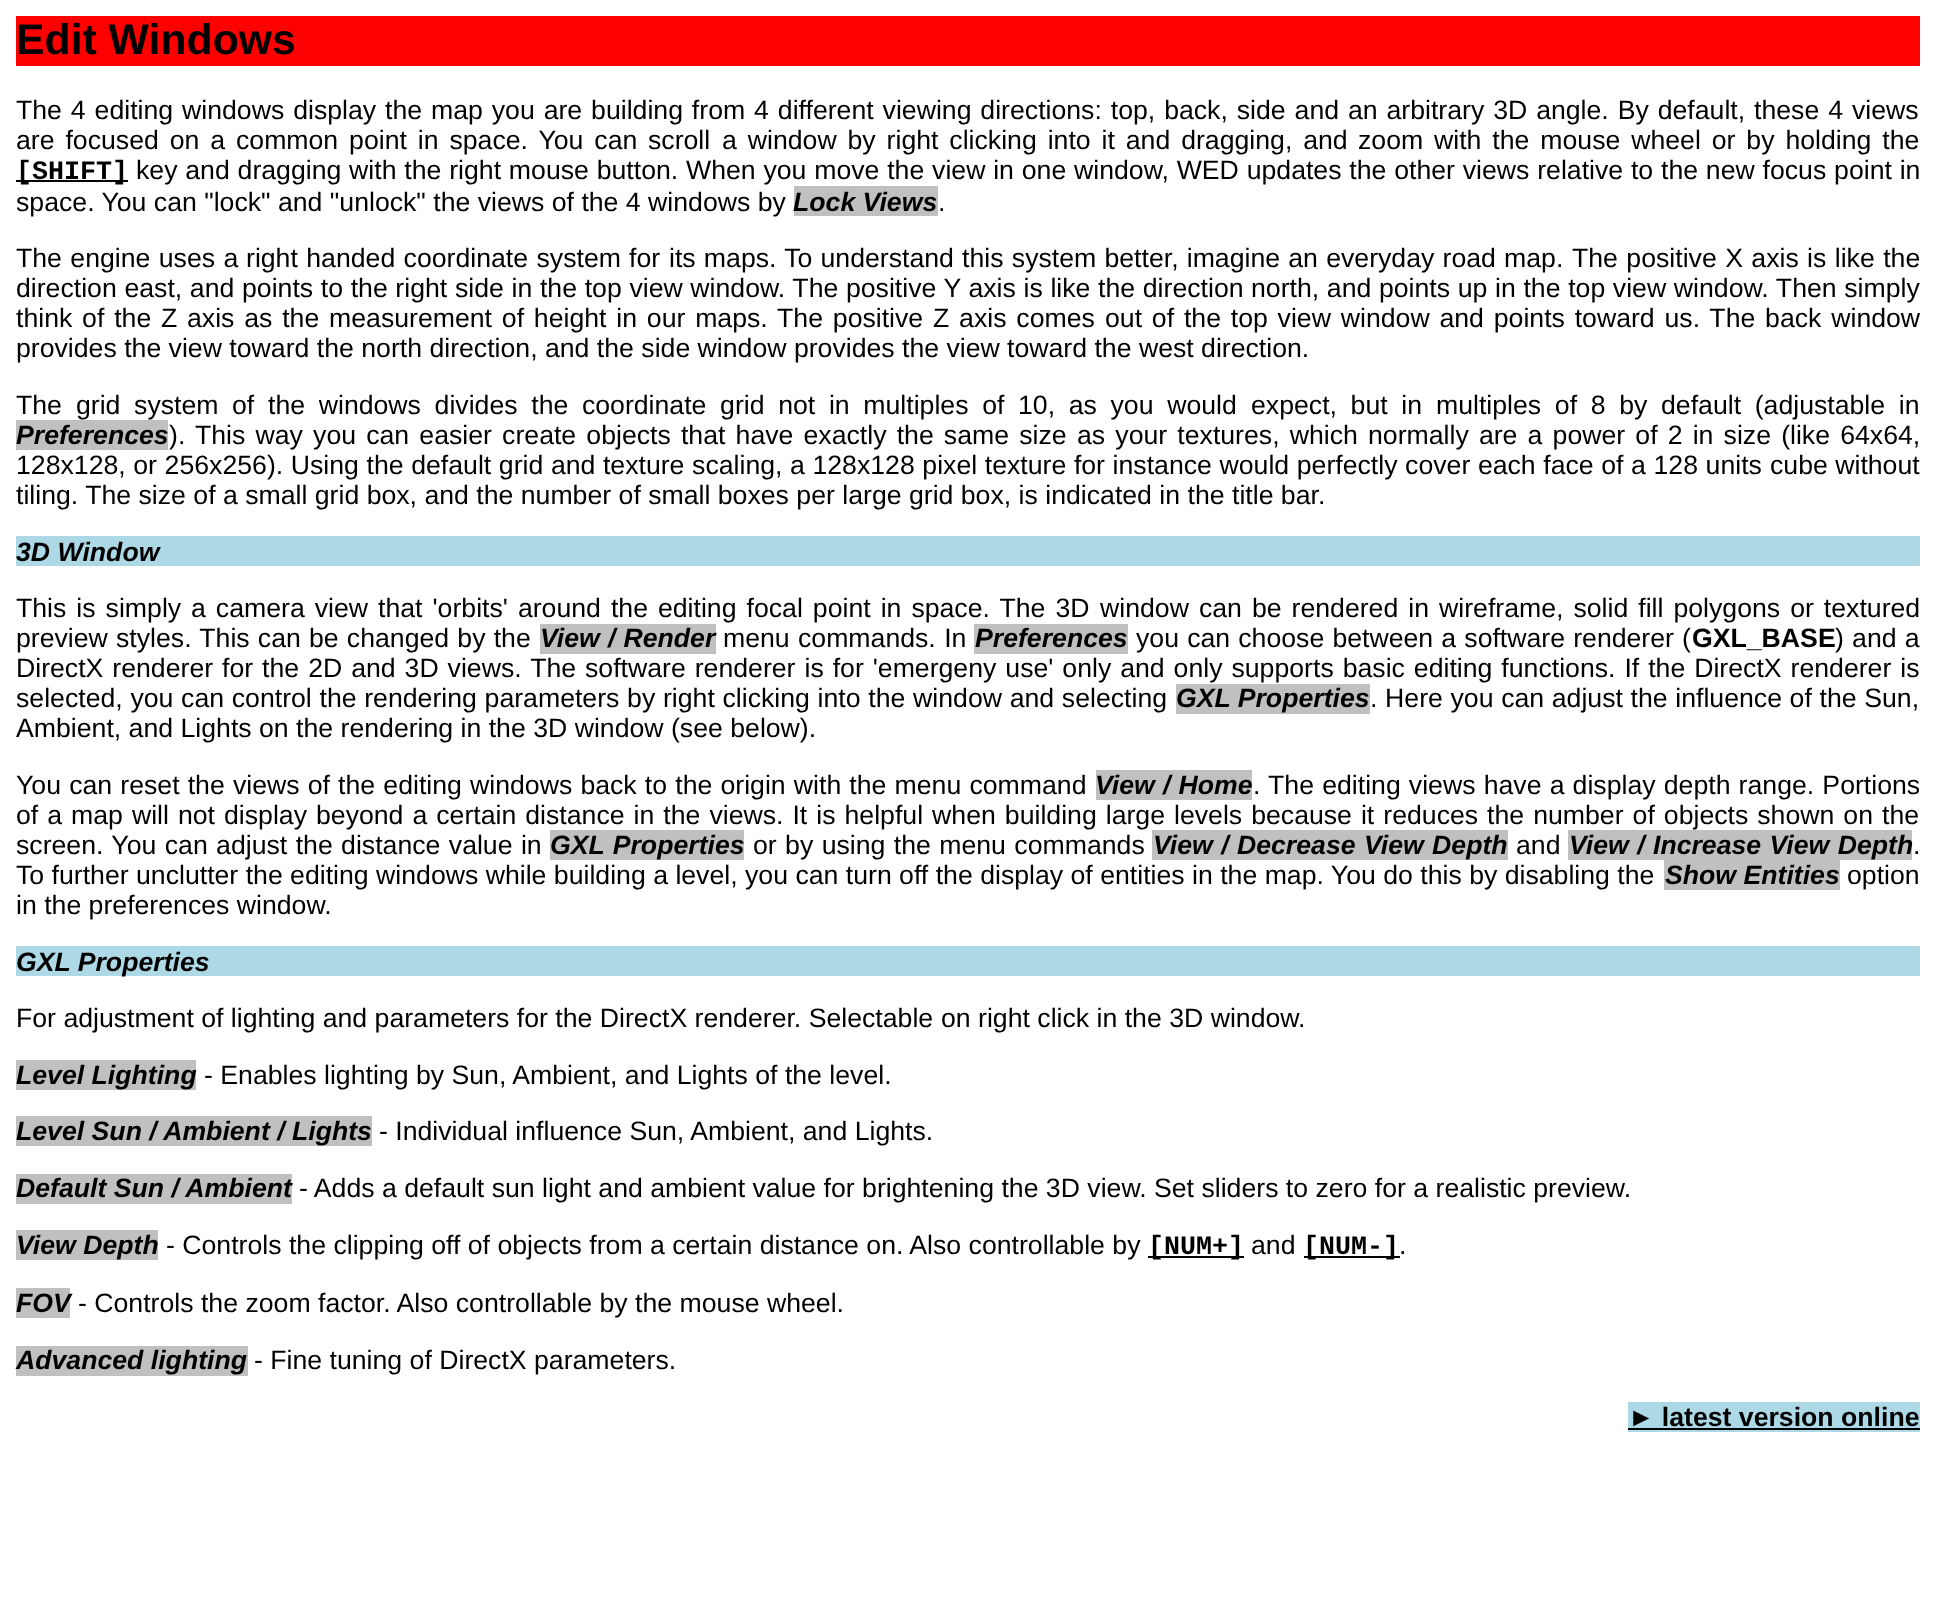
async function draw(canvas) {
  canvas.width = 1936
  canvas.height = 1604
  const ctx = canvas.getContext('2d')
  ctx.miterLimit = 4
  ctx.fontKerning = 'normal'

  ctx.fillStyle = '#fff'
  ctx.fillRect(0, 0, 1936, 1604)
  ctx.fillStyle = '#f00'
  ctx.fillRect(16, 16, 1904, 50)
  ctx.font = 'bold 42.75px Liberation Sans'
  ctx.fillStyle = '#000'
  ctx.fillText('Edit Windows', 16, 54)
  ctx.wordSpacing = '1.5px'
  ctx.font = '26.67px Liberation Sans'
  ctx.fillText('The 4 editing windows display the map you are building from 4 different viewing directions: top, back, side and an arbitrary 3D angle. By default, these 4 views', 16, 119)
  ctx.wordSpacing = '3.5px'
  ctx.fillText('are focused on a common point in space. You can', 16, 149)
  ctx.wordSpacing = '0px'
  ctx.fillText('scroll', 648, 149)
  ctx.wordSpacing = '3.5px'
  ctx.fillText('a window by right clicking into it and dragging, and', 722, 149)
  ctx.wordSpacing = '0px'
  ctx.fillText('zoom', 1358, 149)
  ctx.wordSpacing = '3.5px'
  ctx.fillText('with the mouse wheel or by holding the', 1434, 149)
  ctx.fillRect(16, 180, 112, 2)
  ctx.wordSpacing = '0px'
  ctx.font = 'bold 26.67px Liberation Mono'
  ctx.fillText('[SHIFT]', 16, 179)
  ctx.wordSpacing = '0.4px'
  ctx.font = '26.67px Liberation Sans'
  ctx.fillText('key and dragging with the right mouse button. When you move the view in one window, WED updates the other views relative to the new focus point in', 136, 179)
  ctx.wordSpacing = '0px'
  ctx.fillText('space. You can "lock" and "unlock" the views of the 4 windows by', 16, 211)
  ctx.fillStyle = '#c0c0c0'
  ctx.fillRect(794, 186, 144, 30)
  ctx.font = 'italic bold 26.67px Liberation Sans'
  ctx.fillStyle = '#000'
  ctx.fillText('Lock Views', 793, 211)
  ctx.font = '26.67px Liberation Sans'
  ctx.fillText('.', 938, 211)
  ctx.wordSpacing = '1px'
  ctx.fillText('The engine uses a', 16, 267)
  ctx.fillText('right handed coordinate system', 246, 267)
  ctx.wordSpacing = '0px'
  ctx.fillText('for', 629, 267)
  ctx.wordSpacing = '0.8px'
  ctx.fillText('its maps. To understand this system better, imagine an everyday road map.', 669, 267)
  ctx.wordSpacing = '1px'
  ctx.fillText('The positive X axis is like the', 1572, 267)
  ctx.wordSpacing = '0.25px'
  ctx.fillText('direction east, and points to the right', 16, 297)
  ctx.fillText('side in the top view window. The positive Y axis is like the direction', 455, 297)
  ctx.fillText('north, and points up in the top view window. Then simply', 1251, 297)
  ctx.wordSpacing = '2.4px'
  ctx.fillText('think of the Z', 16, 327)
  ctx.fillText('axis as the measurement of height in our maps. The positive Z axis comes', 187, 327)
  ctx.fillText('out of the top view window and points toward us. The back window', 1105, 327)
  ctx.wordSpacing = '0px'
  ctx.fillText('provides the view toward the north direction, and the side window provides the view', 16, 357)
  ctx.fillText('toward the west direction.', 1007, 357)
  ctx.fillText('The', 16, 414)
  ctx.wordSpacing = '6.25px'
  ctx.fillText('grid system', 76, 414)
  ctx.wordSpacing = '0px'
  ctx.fillText('of', 232, 414)
  ctx.wordSpacing = '6.25px'
  ctx.fillText('the windows divides the coordinate grid not in multiples of 10, as you would', 268, 414)
  ctx.fillText('expect, but in', 1251, 414)
  ctx.fillText('multiples of 8 by default (adjustable in', 1436, 414)
  ctx.fillStyle = '#c0c0c0'
  ctx.fillRect(16, 420, 152, 30)
  ctx.wordSpacing = '0px'
  ctx.font = 'italic bold 26.67px Liberation Sans'
  ctx.fillStyle = '#000'
  ctx.fillText('Preferences', 16, 444)
  ctx.font = '26.67px Liberation Sans'
  ctx.fillText(').', 169, 444)
  ctx.wordSpacing = '2.75px'
  ctx.fillText('This way you can easier create objects that have exactly the same size', 195, 444)
  ctx.fillText('as your textures, which normally are a power of 2 in size (like 64x64,', 1077, 444)
  ctx.wordSpacing = '0.2px'
  ctx.fillText('128x128, or 256x256). Using the default grid and texture scaling, a 128x128 pixel texture for instance would perfectly cover each face of a 128 units', 16, 474)
  ctx.wordSpacing = '0px'
  ctx.fillText('cube without', 1770, 474)
  ctx.fillText('tiling. The size of a small grid box, and the number of small boxes per large grid box, is indicated in the title bar.', 16, 504)
  ctx.fillStyle = '#add8e6'
  ctx.fillRect(16, 536, 1904, 30)
  ctx.font = 'italic bold 26.67px Liberation Sans'
  ctx.fillStyle = '#000'
  ctx.fillText('3D Window', 16, 561)
  ctx.wordSpacing = '2.6px'
  ctx.font = '26.67px Liberation Sans'
  ctx.fillText('This is simply', 16, 617)
  ctx.fillText('a camera view that \'orbits\' around the editing focal point in space. The 3D', 191, 617)
  ctx.fillText('window can be rendered in wireframe, solid fill polygons or textured', 1100, 617)
  ctx.wordSpacing = '0px'
  ctx.fillText('preview', 16, 647)
  ctx.wordSpacing = '0.8px'
  ctx.fillText('styles. This can be changed by the', 116, 647)
  ctx.fillStyle = '#c0c0c0'
  ctx.fillRect(540, 624, 176, 30)
  ctx.wordSpacing = '0.75px'
  ctx.font = 'italic bold 26.67px Liberation Sans'
  ctx.fillStyle = '#000'
  ctx.fillText('View / Render', 540, 647)
  ctx.wordSpacing = '0px'
  ctx.font = '26.67px Liberation Sans'
  ctx.fillText('menu', 723, 647)
  ctx.wordSpacing = '1px'
  ctx.fillText('commands. In', 798, 647)
  ctx.fillStyle = '#c0c0c0'
  ctx.fillRect(974, 624, 154, 30)
  ctx.wordSpacing = '0px'
  ctx.font = 'italic bold 26.67px Liberation Sans'
  ctx.fillStyle = '#000'
  ctx.fillText('Preferences', 975, 647)
  ctx.wordSpacing = '0.75px'
  ctx.font = '26.67px Liberation Sans'
  ctx.fillText('you can choose between a software renderer (', 1136, 647)
  ctx.wordSpacing = '0px'
  ctx.font = 'bold 26.67px Liberation Sans'
  ctx.fillText('GXL_BASE', 1692, 647)
  ctx.wordSpacing = '0.8px'
  ctx.font = '26.67px Liberation Sans'
  ctx.fillText(') and a', 1835, 647)
  ctx.wordSpacing = '1.55px'
  ctx.fillText('DirectX renderer for the 2D and 3D views. The software renderer is for \'emergeny use\' only and only supports basic editing functions. If the DirectX renderer is', 16, 677)
  ctx.wordSpacing = '0.3px'
  ctx.fillText('selected, you can control the rendering parameters by right clicking into the window and selecting', 16, 707)
  ctx.fillStyle = '#c0c0c0'
  ctx.fillRect(1176, 684, 194, 30)
  ctx.wordSpacing = '0px'
  ctx.font = 'italic bold 26.67px Liberation Sans'
  ctx.fillStyle = '#000'
  ctx.fillText('GXL Properties', 1176, 707)
  ctx.wordSpacing = '0.25px'
  ctx.font = '26.67px Liberation Sans'
  ctx.fillText('. Here you can adjust the influence of the Sun,', 1370, 707)
  ctx.wordSpacing = '0px'
  ctx.fillText('Ambient, and Lights on the rendering in the 3D window (see below).', 16, 737)
  ctx.wordSpacing = '0.75px'
  ctx.fillText('You can reset the views of the editing windows back to the origin with the menu command', 16, 794)
  ctx.fillStyle = '#c0c0c0'
  ctx.fillRect(1096, 770, 156, 30)
  ctx.font = 'italic bold 26.67px Liberation Sans'
  ctx.fillStyle = '#000'
  ctx.fillText('View / Home', 1095, 794)
  ctx.font = '26.67px Liberation Sans'
  ctx.fillText('. The editing views have a display depth range. Portions', 1253, 794)
  ctx.wordSpacing = '1.6px'
  ctx.fillText('of a map will not display beyond a certain distance in the views. It is helpful when building large levels because it reduces the number of objects shown on the', 16, 824)
  ctx.wordSpacing = '1px'
  ctx.fillText('screen. You can adjust the distance value in', 16, 854)
  ctx.fillStyle = '#c0c0c0'
  ctx.fillRect(550, 830, 194, 30)
  ctx.font = 'italic bold 26.67px Liberation Sans'
  ctx.fillStyle = '#000'
  ctx.fillText('GXL Properties', 550, 854)
  ctx.font = '26.67px Liberation Sans'
  ctx.fillText('or by using the menu commands', 753, 854)
  ctx.fillStyle = '#c0c0c0'
  ctx.fillRect(1152, 830, 356, 30)
  ctx.font = 'italic bold 26.67px Liberation Sans'
  ctx.fillStyle = '#000'
  ctx.fillText('View / Decrease View Depth', 1153, 854)
  ctx.wordSpacing = '0px'
  ctx.font = '26.67px Liberation Sans'
  ctx.fillText('and', 1516, 854)
  ctx.fillStyle = '#c0c0c0'
  ctx.fillRect(1568, 830, 344, 30)
  ctx.wordSpacing = '1px'
  ctx.font = 'italic bold 26.67px Liberation Sans'
  ctx.fillStyle = '#000'
  ctx.fillText('View / Increase View Depth', 1569, 854)
  ctx.wordSpacing = '0px'
  ctx.font = '26.67px Liberation Sans'
  ctx.fillText('.', 1913, 854)
  ctx.fillText('To further unclutter the editing windows while building a level, you can turn off the display of entities in the map. You do this by disabling the', 16, 884)
  ctx.fillStyle = '#c0c0c0'
  ctx.fillRect(1664, 860, 176, 30)
  ctx.font = 'italic bold 26.67px Liberation Sans'
  ctx.fillStyle = '#000'
  ctx.fillText('Show Entities', 1665, 884)
  ctx.font = '26.67px Liberation Sans'
  ctx.fillText('option', 1847, 884)
  ctx.fillText('in the preferences window.', 16, 914)
  ctx.fillStyle = '#add8e6'
  ctx.fillRect(16, 946, 1904, 30)
  ctx.font = 'italic bold 26.67px Liberation Sans'
  ctx.fillStyle = '#000'
  ctx.fillText('GXL Properties', 16, 971)
  ctx.font = '26.67px Liberation Sans'
  ctx.fillText('For adjustment of lighting and parameters for the DirectX renderer. Selectable', 16, 1027)
  ctx.fillText('on right click in the 3D window.', 941, 1027)
  ctx.fillStyle = '#c0c0c0'
  ctx.fillRect(16, 1060, 180, 30)
  ctx.font = 'italic bold 26.67px Liberation Sans'
  ctx.fillStyle = '#000'
  ctx.fillText('Level Lighting', 16, 1084)
  ctx.font = '26.67px Liberation Sans'
  ctx.fillText('- Enables lighting by Sun, Ambient, and Lights of the level.', 204, 1084)
  ctx.fillStyle = '#c0c0c0'
  ctx.fillRect(16, 1116, 356, 30)
  ctx.font = 'italic bold 26.67px Liberation Sans'
  ctx.fillStyle = '#000'
  ctx.fillText('Level Sun / Ambient / Lights', 16, 1140)
  ctx.font = '26.67px Liberation Sans'
  ctx.fillText('- Individual influence Sun, Ambient, and Lights.', 379, 1140)
  ctx.fillStyle = '#c0c0c0'
  ctx.fillRect(16, 1174, 276, 30)
  ctx.font = 'italic bold 26.67px Liberation Sans'
  ctx.fillStyle = '#000'
  ctx.fillText('Default Sun / Ambient', 16, 1197)
  ctx.font = '26.67px Liberation Sans'
  ctx.fillText('- Adds a default sun light and ambient value for brightening the 3D view. Set sliders to zero for a realistic preview.', 299, 1197)
  ctx.fillStyle = '#c0c0c0'
  ctx.fillRect(16, 1230, 142, 30)
  ctx.font = 'italic bold 26.67px Liberation Sans'
  ctx.fillStyle = '#000'
  ctx.fillText('View Depth', 16, 1254)
  ctx.font = '26.67px Liberation Sans'
  ctx.fillText('- Controls the clipping off of objects from a certain distance on. Also controllable by', 166, 1254)
  ctx.fillRect(1148, 1256, 96, 2)
  ctx.font = 'bold 26.67px Liberation Mono'
  ctx.fillText('[NUM+]', 1148, 1254)
  ctx.font = '26.67px Liberation Sans'
  ctx.fillText('and', 1251, 1254)
  ctx.fillRect(1304, 1256, 96, 2)
  ctx.font = 'bold 26.67px Liberation Mono'
  ctx.fillText('[NUM-]', 1303, 1254)
  ctx.font = '26.67px Liberation Sans'
  ctx.fillText('.', 1399, 1254)
  ctx.fillStyle = '#c0c0c0'
  ctx.fillRect(16, 1288, 54, 30)
  ctx.font = 'italic bold 26.67px Liberation Sans'
  ctx.fillStyle = '#000'
  ctx.fillText('FOV', 16, 1312)
  ctx.font = '26.67px Liberation Sans'
  ctx.fillText('- Controls the zoom factor. Also controllable by the mouse wheel.', 78, 1312)
  ctx.fillStyle = '#c0c0c0'
  ctx.fillRect(16, 1346, 232, 30)
  ctx.font = 'italic bold 26.67px Liberation Sans'
  ctx.fillStyle = '#000'
  ctx.fillText('Advanced lighting', 16, 1369)
  ctx.font = '26.67px Liberation Sans'
  ctx.fillText('- Fine tuning of DirectX parameters.', 254, 1369)
  ctx.fillStyle = '#add8e6'
  ctx.fillRect(1628, 1402, 292, 30)
  ctx.font = 'bold 26.67px Liberation Sans'
  ctx.fillStyle = '#000'
  ctx.fillText('► latest version online', 1628, 1426)
  ctx.fillRect(1628, 1428, 292, 2)
}

draw(document.querySelector('canvas'))
